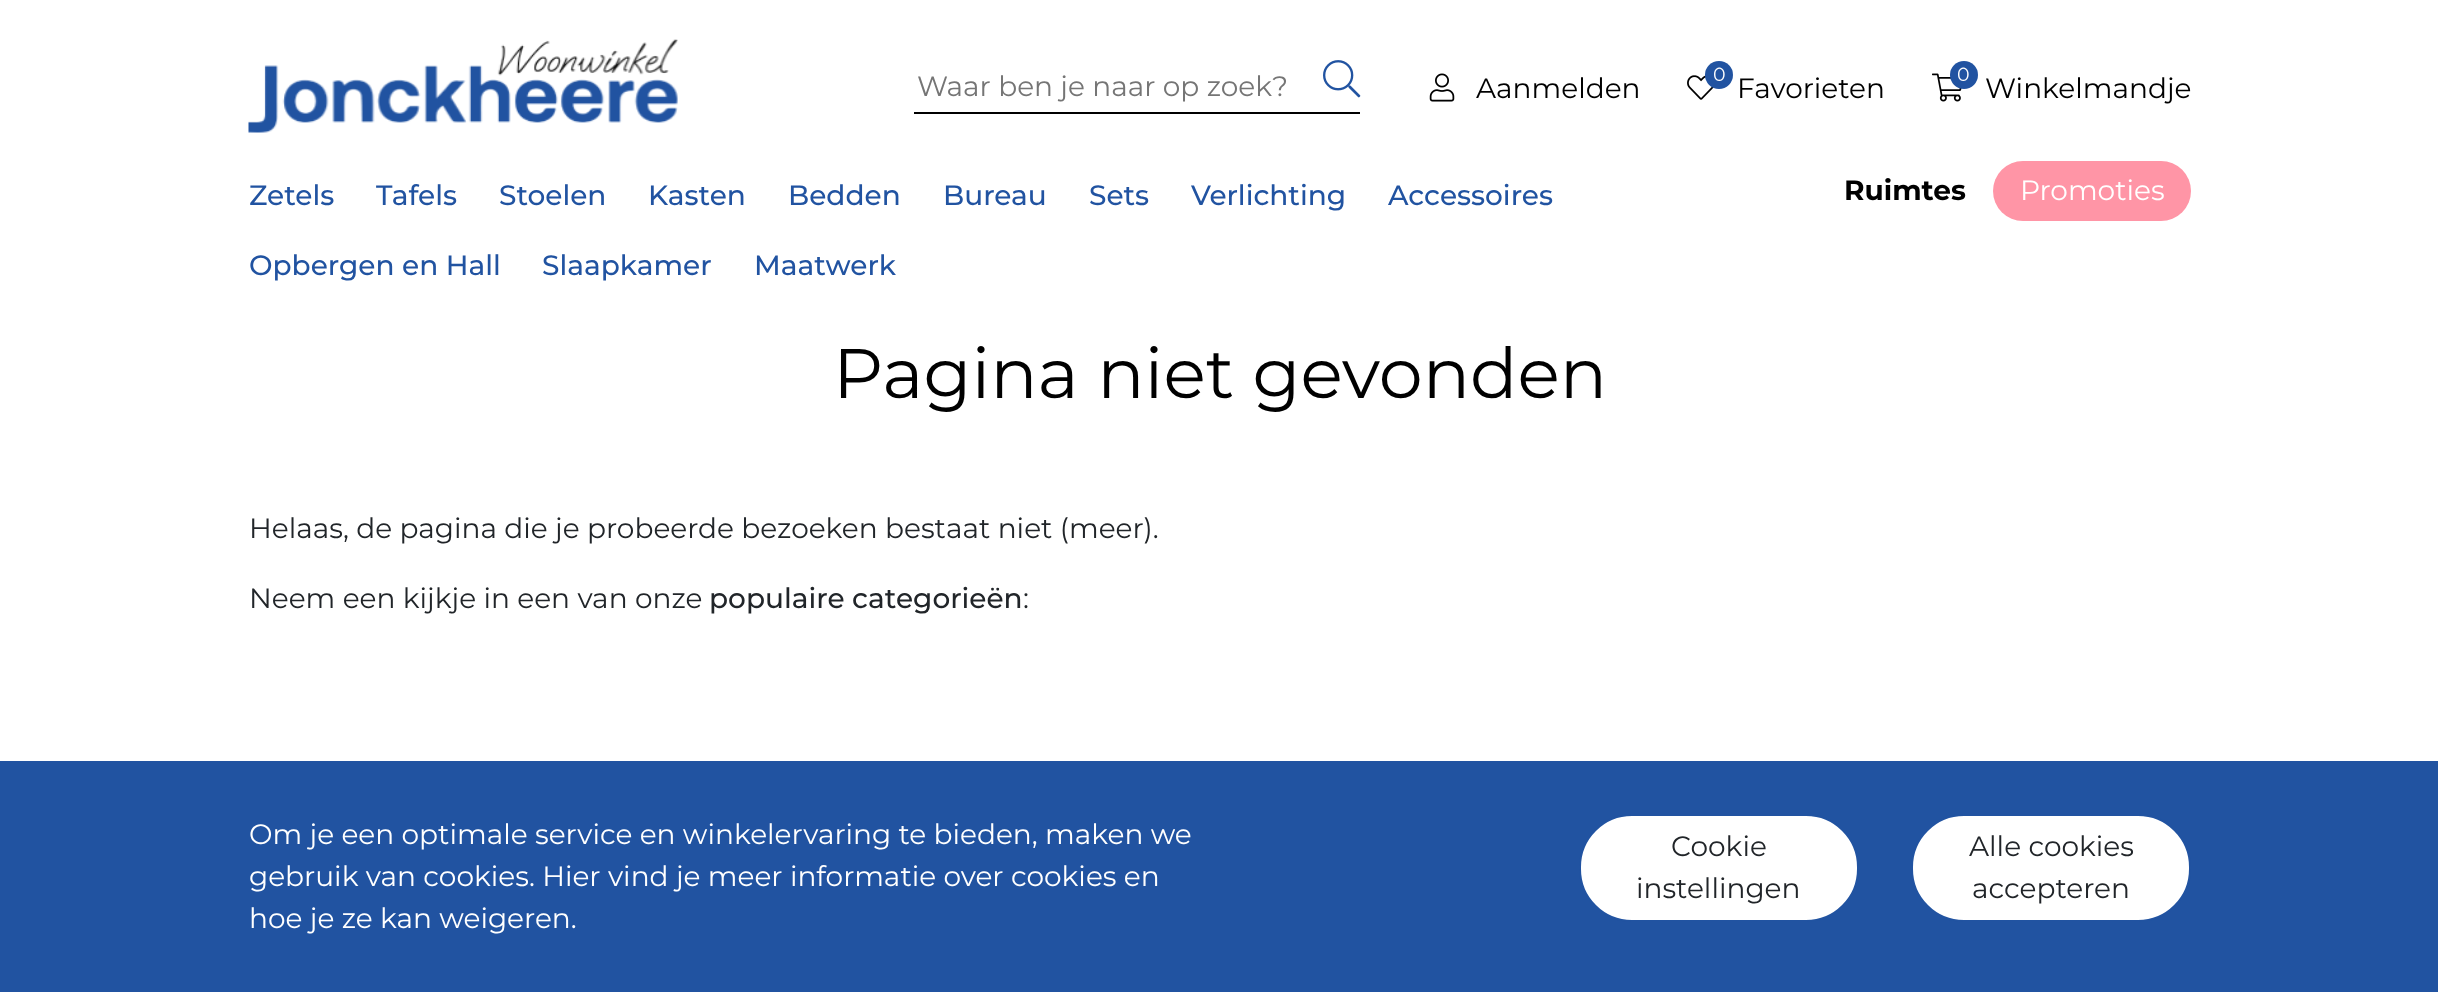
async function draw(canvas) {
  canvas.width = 2438
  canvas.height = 992
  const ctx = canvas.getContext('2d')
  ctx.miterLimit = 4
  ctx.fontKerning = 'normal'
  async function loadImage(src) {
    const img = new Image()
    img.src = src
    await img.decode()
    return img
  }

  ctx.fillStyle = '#fff'
  ctx.fillRect(0, 0, 2438, 992)
  ctx.drawImage(await loadImage('image0.png'), 248, 39, 430, 94)
  ctx.fillStyle = '#000'
  ctx.fillRect(914, 112, 446, 2)
  ctx.font = '28px Montserrat'
  ctx.fillStyle = '#757575'
  ctx.fillText('Waar ben je naar op zoek?', 917, 96)
  ctx.drawImage(await loadImage('image1.png'), 1323, 60, 38, 38)
  ctx.drawImage(await loadImage('image2.png'), 1429, 73, 26, 29)
  ctx.fillStyle = '#000'
  ctx.fillText('Aanmelden', 1476, 98)
  ctx.drawImage(await loadImage('image3.png'), 1687, 75, 27, 25)
  ctx.fillStyle = '#2153a1'
  ctx.beginPath()
  ctx.arc(1719, 75, 14, 0, 2 * Math.PI)
  ctx.fill()
  ctx.font = '19px Montserrat'
  ctx.fillStyle = '#fff'
  ctx.fillText('0', 1713, 81)
  ctx.font = '28px Montserrat'
  ctx.fillStyle = '#000'
  ctx.fillText('Favorieten', 1737, 98)
  ctx.drawImage(await loadImage('image4.png'), 1932, 73, 30, 29)
  ctx.fillStyle = '#2153a1'
  ctx.beginPath()
  ctx.arc(1964, 75, 14, 0, 2 * Math.PI)
  ctx.fill()
  ctx.font = '19px Montserrat'
  ctx.fillStyle = '#fff'
  ctx.fillText('0', 1957, 81)
  ctx.font = '28px Montserrat'
  ctx.fillStyle = '#000'
  ctx.fillText('Winkelmandje', 1985, 98)
  ctx.font = '500 28px Montserrat'
  ctx.fillStyle = '#2153a1'
  ctx.fillText('Zetels', 249, 205)
  ctx.fillText('Tafels', 376, 205)
  ctx.fillText('Stoelen', 499, 205)
  ctx.fillText('Kasten', 648, 205)
  ctx.fillText('Bedden', 788, 205)
  ctx.fillText('Bureau', 943, 205)
  ctx.fillText('Sets', 1089, 205)
  ctx.fillText('Verlichting', 1191, 205)
  ctx.fillText('Accessoires', 1388, 205)
  ctx.fillText('Opbergen en Hall', 249, 275)
  ctx.fillText('Slaapkamer', 542, 275)
  ctx.fillText('Maatwerk', 754, 275)
  ctx.font = 'bold 28px Montserrat'
  ctx.fillStyle = '#000'
  ctx.fillText('Ruimtes', 1844, 200)
  ctx.fillStyle = '#ff95a6'
  ctx.beginPath()
  ctx.roundRect(1993, 161, 198, 60, 30)
  ctx.fill()
  ctx.font = '28px Montserrat'
  ctx.fillStyle = '#fff'
  ctx.fillText('Promoties', 2020, 200)
  ctx.font = '70px Montserrat'
  ctx.fillStyle = '#000'
  ctx.fillText('Pagina niet gevonden', 833, 398)
  ctx.font = '28px Montserrat'
  ctx.fillStyle = '#212529'
  ctx.fillText('Helaas, de pagina die je probeerde bezoeken bestaat niet (meer).', 249, 538)
  ctx.fillText('Neem een kijkje in een van onze', 249, 608)
  ctx.font = '500 28px Montserrat'
  ctx.fillText('populaire categorieën', 709, 608)
  ctx.font = '28px Montserrat'
  ctx.fillText(':', 1023, 608)
  ctx.fillStyle = '#2153a1'
  ctx.fillRect(0, 761, 2438, 231)
  ctx.fillStyle = '#fff'
  ctx.fillText('Om je een optimale service en winkelervaring te bieden, maken we', 249, 844)
  ctx.fillText('gebruik van cookies. Hier vind je meer informatie over cookies en', 249, 886)
  ctx.fillText('hoe je ze kan weigeren.', 249, 928)
  ctx.beginPath()
  ctx.roundRect(1580, 815, 278, 106, 52)
  ctx.fill()
  ctx.strokeStyle = '#2153a1'
  ctx.lineWidth = 2
  ctx.stroke()
  ctx.fillStyle = '#212529'
  ctx.fillText('Cookie', 1671, 856)
  ctx.fillText('instellingen', 1636, 898)
  ctx.fillStyle = '#fff'
  ctx.beginPath()
  ctx.roundRect(1912, 815, 278, 106, 52)
  ctx.fill()
  ctx.stroke()
  ctx.fillStyle = '#212529'
  ctx.fillText('Alle cookies', 1969, 856)
  ctx.fillText('accepteren', 1972, 898)
}

draw(document.querySelector('canvas'))
